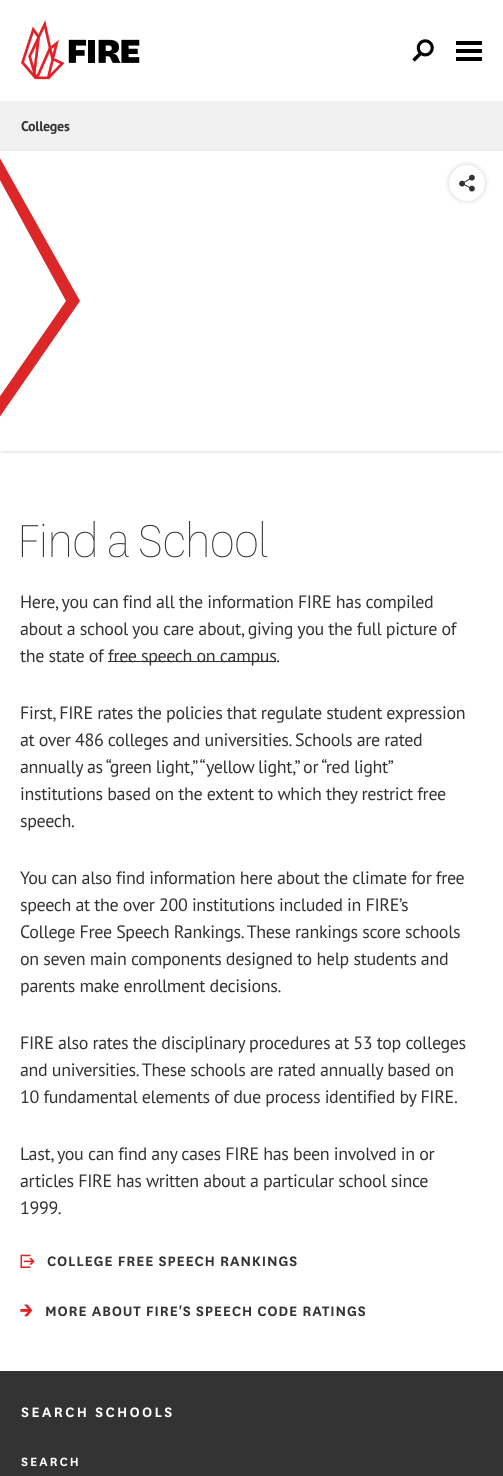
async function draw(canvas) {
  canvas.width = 503
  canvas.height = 1476
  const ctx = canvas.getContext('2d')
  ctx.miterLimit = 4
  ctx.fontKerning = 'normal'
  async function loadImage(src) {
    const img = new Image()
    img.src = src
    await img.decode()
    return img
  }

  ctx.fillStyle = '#fff'
  ctx.fillRect(0, 0, 503, 1476)
  ctx.drawImage(await loadImage('image0.png'), 21, 20, 119, 60)
  ctx.drawImage(await loadImage('image1.png'), 412, 39, 22, 23)
  ctx.fillStyle = '#000'
  ctx.fillRect(456, 49, 26, 4)
  ctx.fillRect(456, 41, 26, 4)
  ctx.fillRect(456, 57, 26, 4)
  ctx.save()
  ctx.beginPath()
  ctx.rect(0, 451, 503, 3)
  ctx.clip()
  ctx.fillStyle = '#00000033'
  ctx.filter = 'blur(2.5px)'
  ctx.beginPath()
  ctx.rect(0, 151, 503, 300)
  ctx.fill()
  ctx.filter = 'none'
  ctx.restore()
  ctx.fillStyle = '#f1f1f1'
  ctx.fillRect(0, 101, 503, 50)
  ctx.letterSpacing = '-0.25px'
  ctx.font = 'bold 14px PT Sans'
  ctx.fillStyle = '#333'
  ctx.fillText('Colleges', 21, 131)
  ctx.fillStyle = '#dc2728'
  ctx.beginPath()
  ctx.moveTo(-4, 151)
  ctx.lineTo(80, 301)
  ctx.lineTo(-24, 451)
  ctx.lineTo(-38, 451)
  ctx.lineTo(66, 301)
  ctx.lineTo(-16, 151)
  ctx.closePath()
  ctx.fill()
  ctx.fillStyle = '#00000033'
  ctx.filter = 'blur(2.5px)'
  ctx.beginPath()
  ctx.roundRect(449, 165, 36, 36, 18)
  ctx.fill()
  ctx.filter = 'none'
  ctx.fillStyle = '#fff'
  ctx.beginPath()
  ctx.arc(467, 183, 18, 0, 2 * Math.PI)
  ctx.fill()
  ctx.drawImage(await loadImage('image2.png'), 459, 174, 16, 18)
  ctx.drawImage(await loadImage('image3.png'), 21, 520, 247, 38)
  ctx.letterSpacing = '-0.35px'
  ctx.font = '18px PT Sans'
  ctx.fillStyle = '#333'
  ctx.fillText('Here, you can find all the information FIRE has compiled', 20, 608)
  ctx.fillText('about a school you care about, giving you the full picture of', 20, 635)
  ctx.fillText('the state of', 20, 662)
  ctx.fillRect(108, 661, 168, 1)
  ctx.fillText('free speech on campus.', 108, 662)
  ctx.fillText('First, FIRE rates the policies that regulate student expression', 20, 719)
  ctx.fillText('at over 486 colleges and universities. Schools are rated', 20, 746)
  ctx.wordSpacing = '-0.25px'
  ctx.fillText('annually as “green light,” “yellow light,” or “red light”', 20, 773)
  ctx.wordSpacing = '0px'
  ctx.fillText('institutions based on the extent to which they restrict free', 20, 800)
  ctx.fillText('speech.', 20, 827)
  ctx.fillText('You can also find information here about the climate for free', 20, 884)
  ctx.fillText('speech at the over 200 institutions included in FIRE’s', 20, 911)
  ctx.fillText('College Free Speech Rankings. These rankings score schools', 20, 938)
  ctx.fillText('on seven main components designed to help students and', 20, 965)
  ctx.fillText('parents make enrollment decisions.', 20, 992)
  ctx.fillText('FIRE also rates the disciplinary procedures at 53 top colleges', 20, 1049)
  ctx.fillText('and universities. These schools are rated annually based on', 20, 1076)
  ctx.fillText('10 fundamental elements of due process identified by FIRE.', 20, 1103)
  ctx.fillText('Last, you can find any cases FIRE has been involved in or', 20, 1160)
  ctx.fillText('articles FIRE has written about a particular school since', 20, 1187)
  ctx.fillText('1999.', 20, 1214)
  ctx.drawImage(await loadImage('image4.png'), 20, 1254, 15, 15)
  ctx.drawImage(await loadImage('image5.png'), 47, 1256, 250, 11)
  ctx.drawImage(await loadImage('image6.png'), 20, 1304, 13, 13)
  ctx.drawImage(await loadImage('image7.png'), 46, 1305, 320, 12)
  ctx.fillRect(0, 1371, 503, 105)
  ctx.drawImage(await loadImage('image8.png'), 21, 1407, 151, 11)
  ctx.drawImage(await loadImage('image9.png'), 21, 1457, 57, 10)
}

draw(document.querySelector('canvas'))
